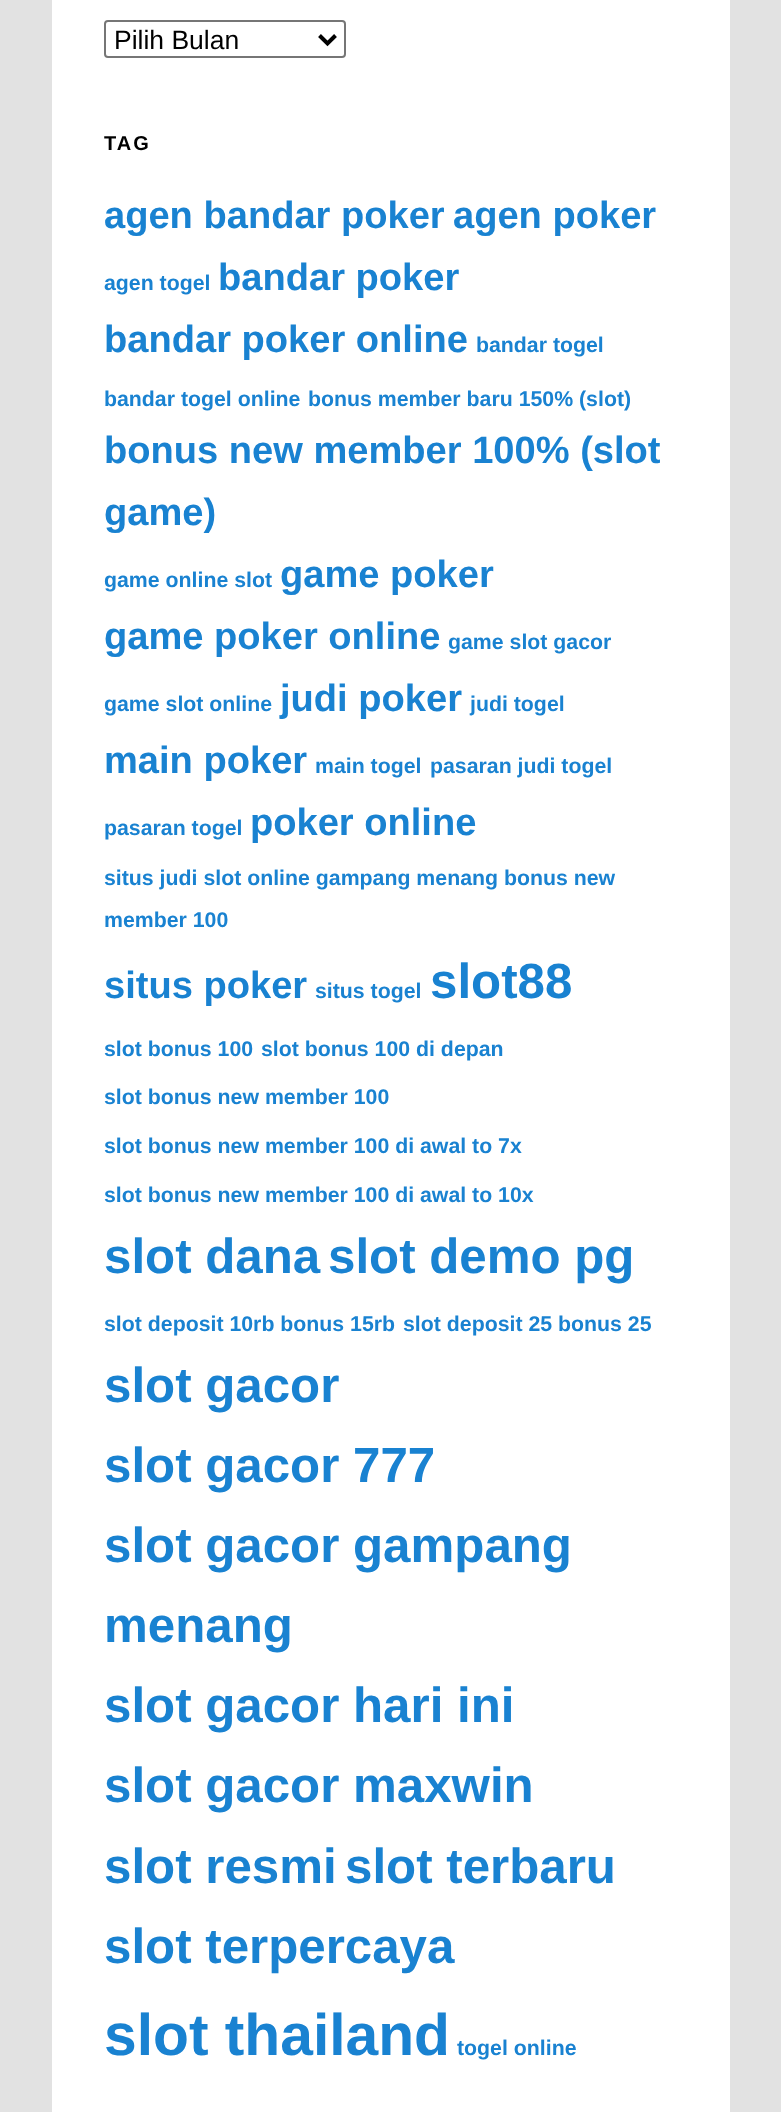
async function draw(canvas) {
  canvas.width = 781
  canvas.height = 2112
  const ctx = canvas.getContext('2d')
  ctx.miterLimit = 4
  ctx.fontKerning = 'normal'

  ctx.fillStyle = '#e2e2e2'
  ctx.fillRect(0, 0, 781, 2112)
  ctx.fillStyle = '#fff'
  ctx.fillRect(52, 0, 678, 2112)
  ctx.beginPath()
  ctx.roundRect(105, 21, 240, 36, 3)
  ctx.strokeStyle = '#767676'
  ctx.lineWidth = 2
  ctx.stroke()
  ctx.beginPath()
  ctx.moveTo(319.5, 35.5)
  ctx.lineTo(327.5, 43.5)
  ctx.lineTo(335.5, 35.5)
  ctx.strokeStyle = '#000'
  ctx.lineWidth = 4
  ctx.stroke()
  ctx.font = '26.5px Liberation Sans'
  ctx.fillStyle = '#000'
  ctx.fillText('Pilih Bulan', 114, 49)
  ctx.letterSpacing = '2px'
  ctx.font = 'bold 20px Liberation Sans'
  ctx.fillText('TAG', 104, 150)
  ctx.letterSpacing = '0px'
  ctx.font = 'bold 38.1px Liberation Sans'
  ctx.fillStyle = '#1982d1'
  ctx.fillText('agen bandar poker', 104, 228)
  ctx.fillText('agen poker', 453, 228)
  ctx.font = 'bold 21.3px Liberation Sans'
  ctx.fillText('agen togel', 104, 290)
  ctx.font = 'bold 38.1px Liberation Sans'
  ctx.fillText('bandar poker', 218, 290)
  ctx.fillText('bandar poker online', 104, 352)
  ctx.font = 'bold 21.3px Liberation Sans'
  ctx.fillText('bandar togel', 476, 352)
  ctx.fillText('bandar togel online', 104, 406)
  ctx.fillText('bonus member baru 150% (slot)', 308, 406)
  ctx.font = 'bold 38.1px Liberation Sans'
  ctx.fillText('bonus new member 100% (slot', 104, 463)
  ctx.fillText('game)', 104, 525)
  ctx.font = 'bold 21.3px Liberation Sans'
  ctx.fillText('game online slot', 104, 587)
  ctx.font = 'bold 38.1px Liberation Sans'
  ctx.fillText('game poker', 280, 587)
  ctx.fillText('game poker online', 104, 649)
  ctx.font = 'bold 21.3px Liberation Sans'
  ctx.fillText('game slot gacor', 448, 649)
  ctx.fillText('game slot online', 104, 711)
  ctx.font = 'bold 38.1px Liberation Sans'
  ctx.fillText('judi poker', 280, 711)
  ctx.font = 'bold 21.3px Liberation Sans'
  ctx.fillText('judi togel', 470, 711)
  ctx.font = 'bold 38.1px Liberation Sans'
  ctx.fillText('main poker', 104, 773)
  ctx.font = 'bold 21.3px Liberation Sans'
  ctx.fillText('main togel', 315, 773)
  ctx.fillText('pasaran judi togel', 430, 773)
  ctx.fillText('pasaran togel', 104, 835)
  ctx.font = 'bold 38.1px Liberation Sans'
  ctx.fillText('poker online', 250, 835)
  ctx.font = 'bold 21.3px Liberation Sans'
  ctx.fillText('situs judi slot online gampang menang bonus new', 104, 885)
  ctx.fillText('member 100', 104, 927)
  ctx.font = 'bold 38.1px Liberation Sans'
  ctx.fillText('situs poker', 104, 998)
  ctx.font = 'bold 21.3px Liberation Sans'
  ctx.fillText('situs togel', 315, 998)
  ctx.font = 'bold 49.25px Liberation Sans'
  ctx.fillText('slot88', 430, 998)
  ctx.font = 'bold 21.3px Liberation Sans'
  ctx.fillText('slot bonus 100', 104, 1056)
  ctx.fillText('slot bonus 100 di depan', 261, 1056)
  ctx.fillText('slot bonus new member 100', 104, 1104)
  ctx.fillText('slot bonus new member 100 di awal to 7x', 104, 1153)
  ctx.fillText('slot bonus new member 100 di awal to 10x', 104, 1202)
  ctx.font = 'bold 49.25px Liberation Sans'
  ctx.fillText('slot dana', 104, 1273)
  ctx.fillText('slot demo pg', 328, 1273)
  ctx.font = 'bold 21.3px Liberation Sans'
  ctx.fillText('slot deposit 10rb bonus 15rb', 104, 1331)
  ctx.fillText('slot deposit 25 bonus 25', 403, 1331)
  ctx.font = 'bold 49.25px Liberation Sans'
  ctx.fillText('slot gacor', 104, 1402)
  ctx.fillText('slot gacor 777', 104, 1482)
  ctx.fillText('slot gacor gampang', 104, 1562)
  ctx.fillText('menang', 104, 1642)
  ctx.fillText('slot gacor hari ini', 104, 1722)
  ctx.fillText('slot gacor maxwin', 104, 1802)
  ctx.fillText('slot resmi', 104, 1883)
  ctx.fillText('slot terbaru', 345, 1883)
  ctx.fillText('slot terpercaya', 104, 1963)
  ctx.font = 'bold 58.75px Liberation Sans'
  ctx.fillText('slot thailand', 104, 2055)
  ctx.font = 'bold 21.3px Liberation Sans'
  ctx.fillText('togel online', 457, 2055)
}

draw(document.querySelector('canvas'))
